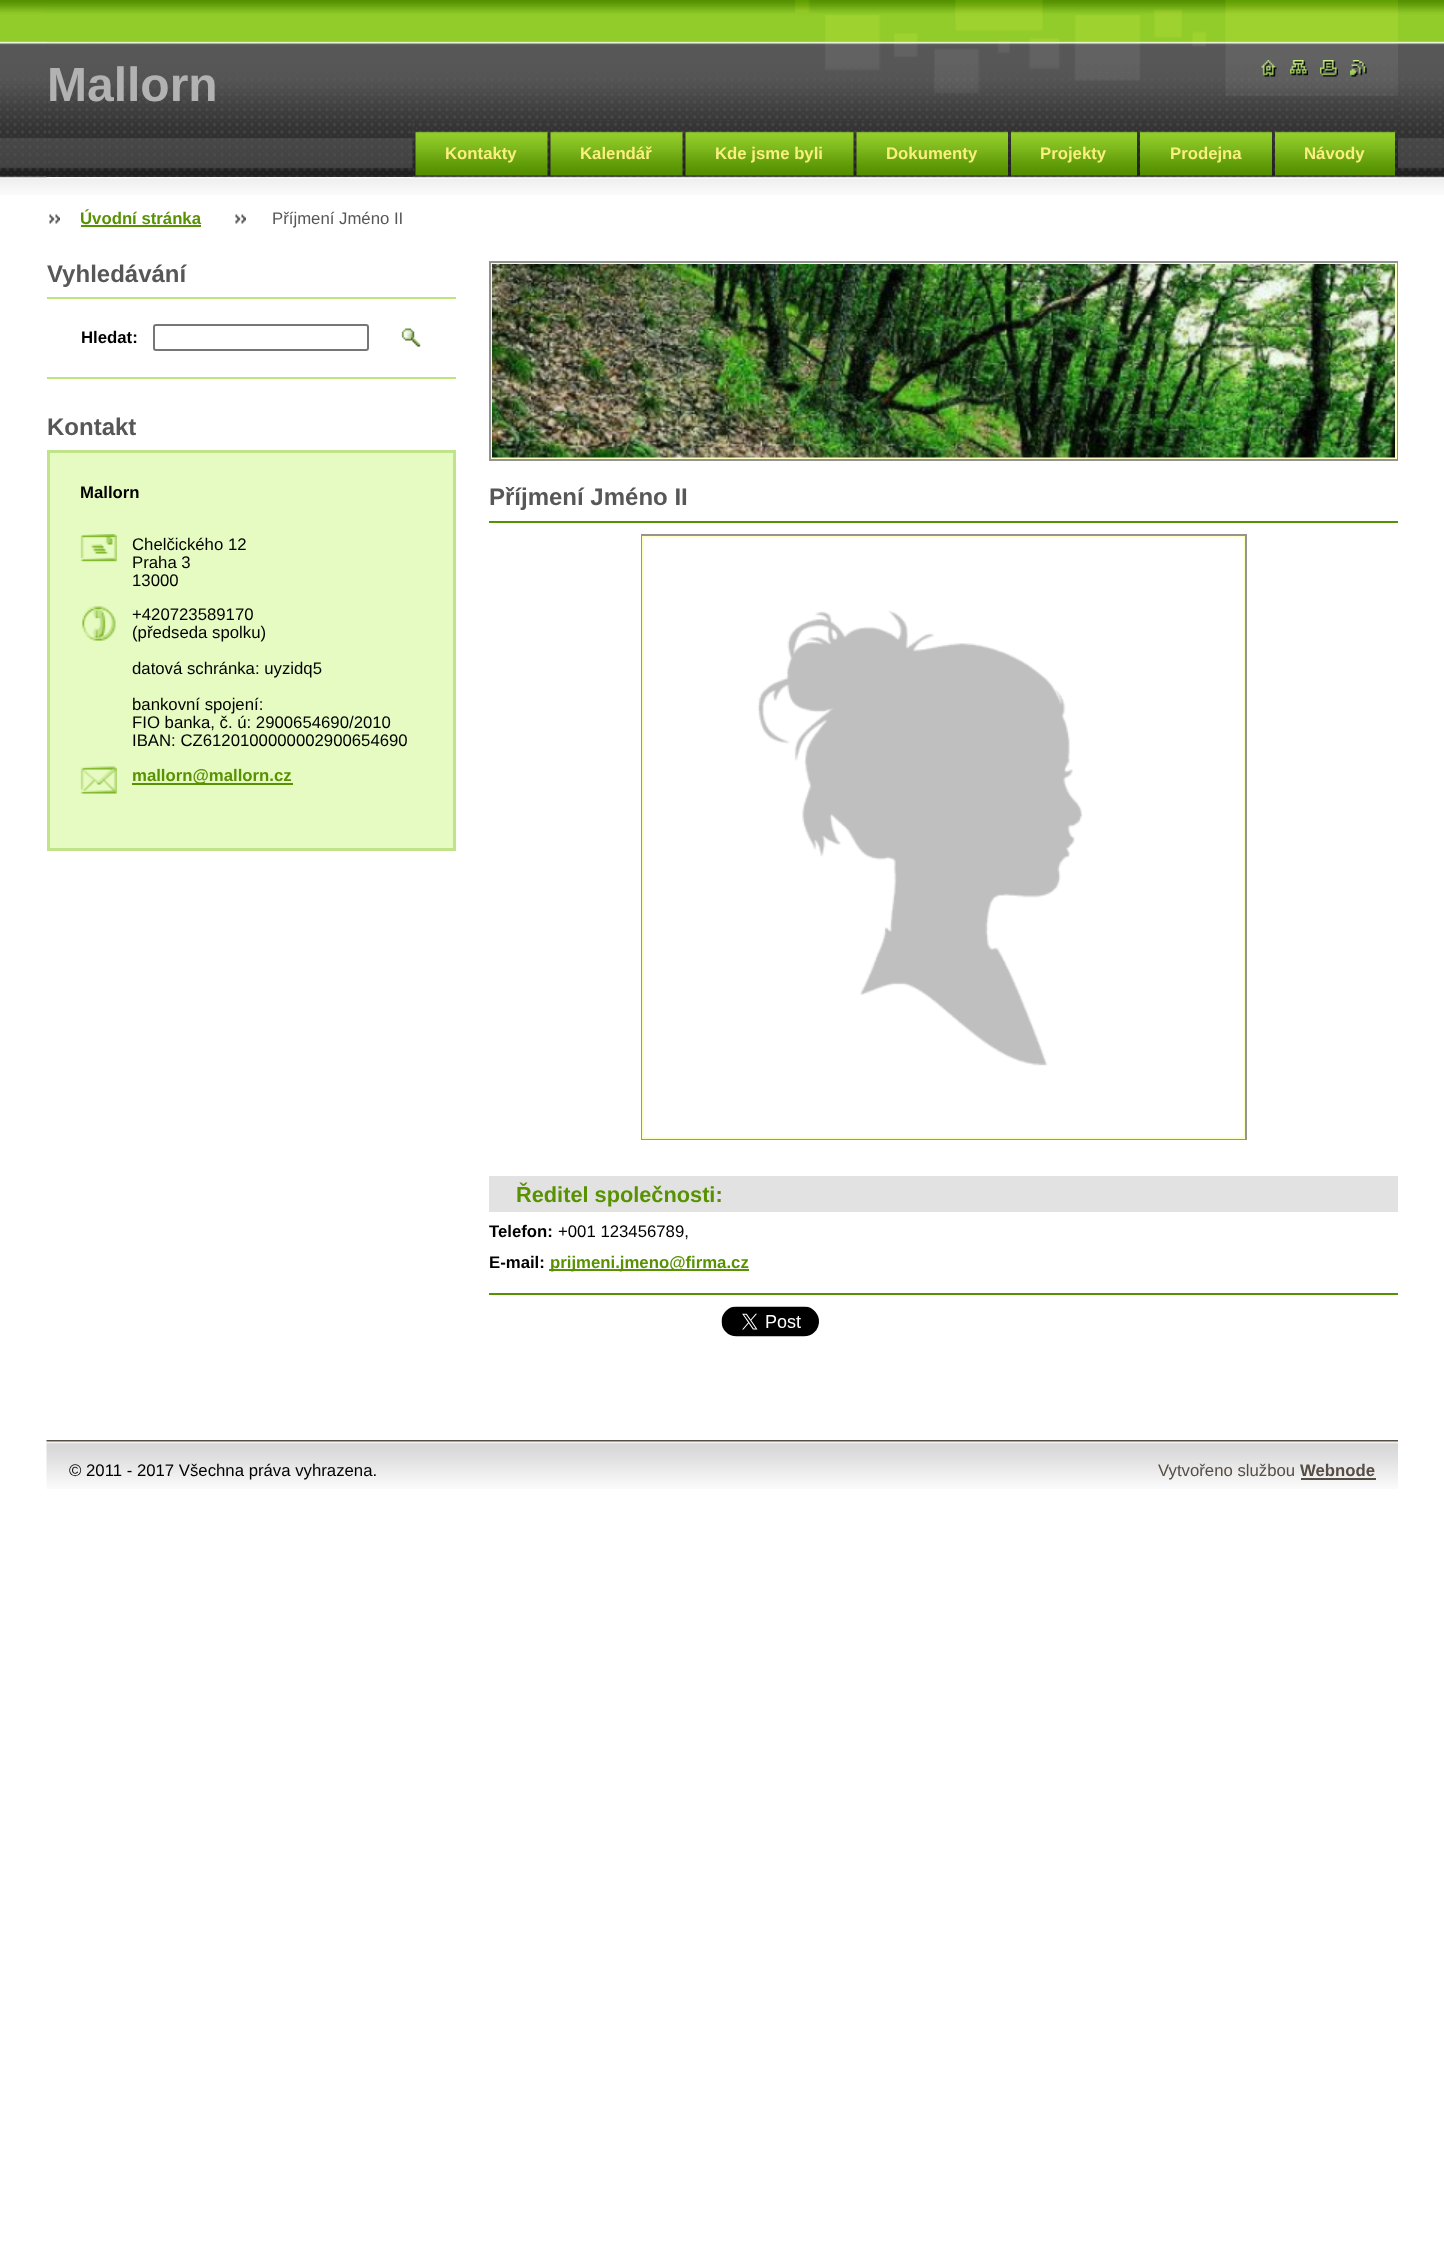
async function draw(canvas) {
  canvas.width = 1444
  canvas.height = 2260
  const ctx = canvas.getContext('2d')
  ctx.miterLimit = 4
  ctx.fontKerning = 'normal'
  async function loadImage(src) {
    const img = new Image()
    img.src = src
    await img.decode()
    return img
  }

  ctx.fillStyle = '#fff'
  ctx.fillRect(0, 0, 1444, 2260)
  ctx.drawImage(await loadImage('image0.png'), 0, 0, 1444, 195)
  ctx.drawImage(await loadImage('image1.png'), 46, 0, 1352, 177)
  ctx.font = 'bold 48px Liberation Sans'
  ctx.fillStyle = '#b2b2b2'
  ctx.fillText('Mallorn', 47, 101)
  ctx.drawImage(await loadImage('image2.png'), 1261, 60, 16, 17)
  ctx.drawImage(await loadImage('image3.png'), 1290, 60, 18, 16)
  ctx.drawImage(await loadImage('image4.png'), 1320, 60, 18, 17)
  ctx.drawImage(await loadImage('image5.png'), 1350, 60, 17, 17)
  ctx.drawImage(await loadImage('image14.png'), 46, 177, 1352, 18)
  ctx.drawImage(await loadImage('image6.png'), 412, 123, 986, 56)
  ctx.drawImage(await loadImage('image7.png'), 415, 131, 133, 45)
  ctx.font = 'bold 16.75px Liberation Sans'
  ctx.fillStyle = '#f9ef7f'
  ctx.fillText('Kontakty', 445, 159)
  ctx.drawImage(await loadImage('image8.png'), 550, 131, 133, 45)
  ctx.fillText('Kalendář', 580, 159)
  ctx.drawImage(await loadImage('image9.png'), 685, 131, 169, 45)
  ctx.fillText('Kde jsme byli', 715, 159)
  ctx.drawImage(await loadImage('image10.png'), 856, 131, 152, 45)
  ctx.fillText('Dokumenty', 886, 159)
  ctx.drawImage(await loadImage('image11.png'), 1011, 131, 126, 45)
  ctx.fillText('Projekty', 1040, 159)
  ctx.drawImage(await loadImage('image12.png'), 1140, 131, 132, 45)
  ctx.fillText('Prodejna', 1170, 159)
  ctx.drawImage(await loadImage('image13.png'), 1275, 131, 120, 45)
  ctx.fillText('Návody', 1304, 159)
  ctx.drawImage(await loadImage('image15.png'), 49, 214, 11, 10)
  ctx.fillStyle = '#589203'
  ctx.fillText('Úvodní stránka', 80, 224)
  ctx.fillRect(81, 225, 120, 2)
  ctx.drawImage(await loadImage('image15.png'), 235, 214, 11, 10)
  ctx.font = '16.75px Liberation Sans'
  ctx.fillStyle = '#575757'
  ctx.fillText('Příjmení Jméno II', 272, 224)
  ctx.font = 'bold 24px Liberation Sans'
  ctx.fillText('Vyhledávání', 47, 282)
  ctx.fillStyle = '#bce37c'
  ctx.fillRect(47, 297, 409, 2)
  ctx.fillRect(47, 377, 409, 2)
  ctx.font = 'bold 16.75px Liberation Sans'
  ctx.fillStyle = '#000'
  ctx.fillText('Hledat:', 81, 343)
  ctx.beginPath()
  ctx.roundRect(154, 325, 214, 25, 2)
  ctx.strokeStyle = '#767676'
  ctx.lineWidth = 2
  ctx.stroke()
  ctx.drawImage(await loadImage('image16.png'), 401, 328, 20, 19)
  ctx.font = 'bold 24px Liberation Sans'
  ctx.fillStyle = '#575757'
  ctx.fillText('Kontakt', 47, 435)
  ctx.fillStyle = '#e6fbc2'
  ctx.beginPath()
  ctx.rect(48.5, 451.5, 406, 398)
  ctx.fill()
  ctx.strokeStyle = '#c1e48a'
  ctx.lineWidth = 3
  ctx.stroke()
  ctx.font = 'bold 16.75px Liberation Sans'
  ctx.fillStyle = '#000'
  ctx.fillText('Mallorn', 80, 498)
  ctx.drawImage(await loadImage('image17.png'), 80, 534, 37, 28)
  ctx.font = '16.75px Liberation Sans'
  ctx.fillText('Chelčického 12', 132, 550)
  ctx.fillText('Praha 3', 132, 568)
  ctx.fillText('13000', 132, 586)
  ctx.drawImage(await loadImage('image18.png'), 82, 606, 34, 35)
  ctx.fillText('+420723589170', 132, 620)
  ctx.fillText('(předseda spolku)', 132, 638)
  ctx.fillText('datová schránka: uyzidq5', 132, 674)
  ctx.fillText('bankovní spojení:', 132, 710)
  ctx.fillText('FIO banka, č. ú: 2900654690/2010', 132, 728)
  ctx.fillText('IBAN: CZ6120100000002900654690', 132, 746)
  ctx.drawImage(await loadImage('image19.png'), 80, 766, 37, 28)
  ctx.fillStyle = '#589203'
  ctx.fillRect(132, 783, 161, 2)
  ctx.font = 'bold 16.75px Liberation Sans'
  ctx.fillText('mallorn@mallorn.cz', 132, 781)
  ctx.strokeStyle = '#939393'
  ctx.lineWidth = 2
  ctx.strokeRect(490, 262, 907, 198)
  ctx.strokeStyle = '#ffffbe'
  ctx.strokeRect(492, 264, 904, 194)
  ctx.drawImage(await loadImage('image20.png'), 492, 264, 903, 194)
  ctx.font = 'bold 24px Liberation Sans'
  ctx.fillStyle = '#575757'
  ctx.fillText('Příjmení Jméno II', 489, 505)
  ctx.fillStyle = '#569102'
  ctx.fillRect(489, 521, 909, 2)
  ctx.fillRect(489, 1293, 909, 2)
  ctx.strokeStyle = '#949496'
  ctx.strokeRect(642, 535, 604, 604)
  ctx.strokeStyle = '#ffffbe'
  ctx.strokeRect(643, 537, 601, 601)
  ctx.drawImage(await loadImage('image21.png'), 643, 537, 601, 600)
  ctx.fillStyle = '#e2e2e2'
  ctx.fillRect(489, 1176, 909, 36)
  ctx.font = 'bold 21.75px Liberation Sans'
  ctx.fillStyle = '#589203'
  ctx.fillText('Ředitel společnosti:', 516, 1202)
  ctx.font = 'bold 16.75px Liberation Sans'
  ctx.fillStyle = '#000'
  ctx.fillText('Telefon:', 489, 1237)
  ctx.font = '16.75px Liberation Sans'
  ctx.fillText('+001 123456789,', 558, 1237)
  ctx.font = 'bold 16.75px Liberation Sans'
  ctx.fillText('E-mail:', 489, 1268)
  ctx.fillStyle = '#589203'
  ctx.fillRect(549, 1269, 200, 2)
  ctx.fillText('prijmeni.jmeno@firma.cz', 550, 1268)
  ctx.drawImage(await loadImage('image22.png'), 721, 1306, 98, 31)
  ctx.drawImage(await loadImage('image23.png'), 46, 1440, 1352, 49)
  ctx.font = '16.75px Liberation Sans'
  ctx.fillStyle = '#000'
  ctx.fillText('© 2011 - 2017 Všechna práva vyhrazena.', 69, 1476)
  ctx.fillStyle = '#564d45'
  ctx.fillText('Vytvořeno službou', 1158, 1476)
  ctx.font = 'bold 16.75px Liberation Sans'
  ctx.fillText('Webnode', 1300, 1476)
  ctx.fillRect(1301, 1478, 75, 2)
}

draw(document.querySelector('canvas'))
